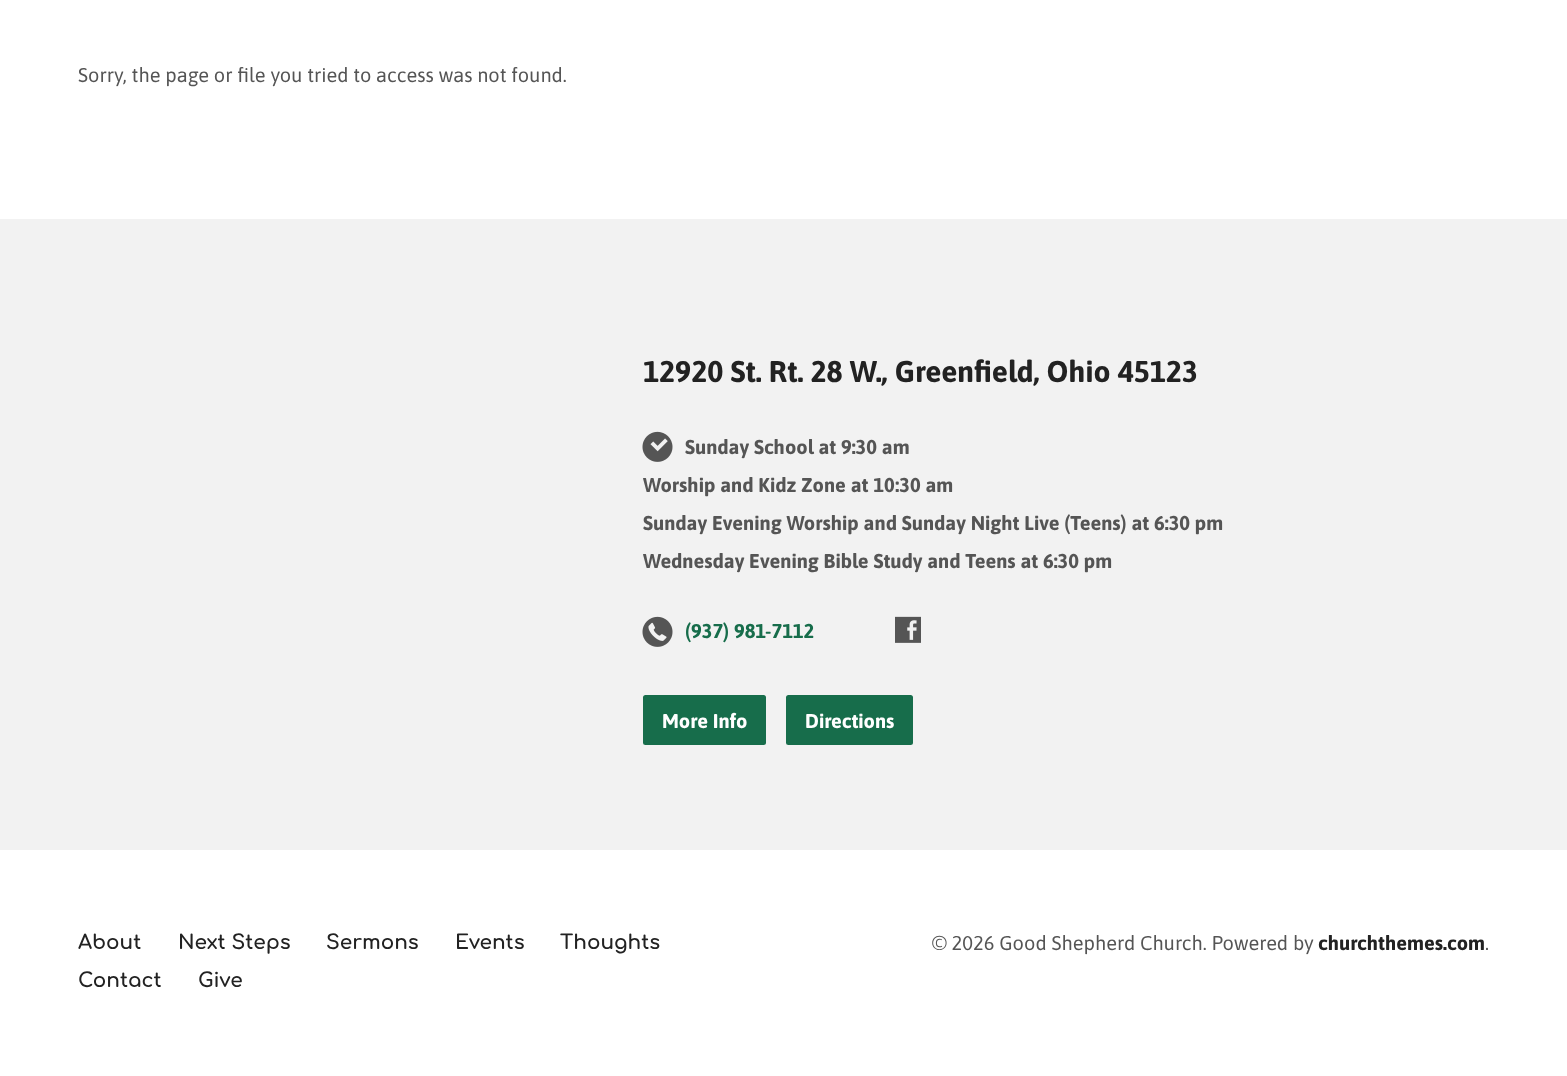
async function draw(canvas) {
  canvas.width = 1567
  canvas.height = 1076
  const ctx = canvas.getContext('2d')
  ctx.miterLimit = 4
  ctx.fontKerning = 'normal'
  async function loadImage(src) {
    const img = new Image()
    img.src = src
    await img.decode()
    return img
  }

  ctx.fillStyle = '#fff'
  ctx.fillRect(0, 0, 1567, 1076)
  ctx.font = '20px Asap'
  ctx.fillStyle = '#555'
  ctx.fillText('Sorry, the page or file you tried to access was not found.', 78, 82)
  ctx.fillStyle = '#f2f2f2'
  ctx.fillRect(0, 219, 1567, 631)
  ctx.font = 'bold 30px Asap'
  ctx.fillStyle = '#222'
  ctx.fillText('12920 St. Rt. 28 W., Greenfield, Ohio 45123', 643, 382)
  ctx.drawImage(await loadImage('image0.png'), 642, 431, 31, 31)
  ctx.font = 'bold 20px Asap'
  ctx.fillStyle = '#555'
  ctx.fillText('Sunday School at 9:30 am', 685, 454)
  ctx.fillText('Worship and Kidz Zone at 10:30 am', 643, 492)
  ctx.fillText('Sunday Evening Worship and Sunday Night Live (Teens) at 6:30 pm', 643, 530)
  ctx.fillText('Wednesday Evening Bible Study and Teens at 6:30 pm', 643, 568)
  ctx.drawImage(await loadImage('image1.png'), 642, 616, 31, 31)
  ctx.fillStyle = '#176d4b'
  ctx.fillText('(937) 981-7112', 685, 638)
  ctx.drawImage(await loadImage('image2.png'), 895, 616, 26, 27)
  ctx.beginPath()
  ctx.roundRect(643, 695, 123, 50, 2.5)
  ctx.fill()
  ctx.fillStyle = '#fff'
  ctx.fillText('More Info', 662, 728)
  ctx.fillStyle = '#176d4b'
  ctx.beginPath()
  ctx.roundRect(786, 695, 127, 50, 2.5)
  ctx.fill()
  ctx.fillStyle = '#fff'
  ctx.fillText('Directions', 805, 728)
  ctx.font = 'bold 20px Comfortaa'
  ctx.fillStyle = '#222'
  ctx.fillText('About', 78, 949)
  ctx.fillText('Next Steps', 178, 949)
  ctx.fillText('Sermons', 326, 949)
  ctx.fillText('Events', 455, 949)
  ctx.fillText('Thoughts', 560, 949)
  ctx.fillText('Contact', 78, 987)
  ctx.fillText('Give', 198, 987)
  ctx.font = '20px Asap'
  ctx.fillStyle = '#555'
  ctx.fillText('© 2026 Good Shepherd Church. Powered by', 932, 950)
  ctx.font = 'bold 20px Asap'
  ctx.fillStyle = '#222'
  ctx.fillText('churchthemes.com', 1318, 950)
  ctx.font = '20px Asap'
  ctx.fillStyle = '#555'
  ctx.fillText('.', 1485, 950)
}

draw(document.querySelector('canvas'))
